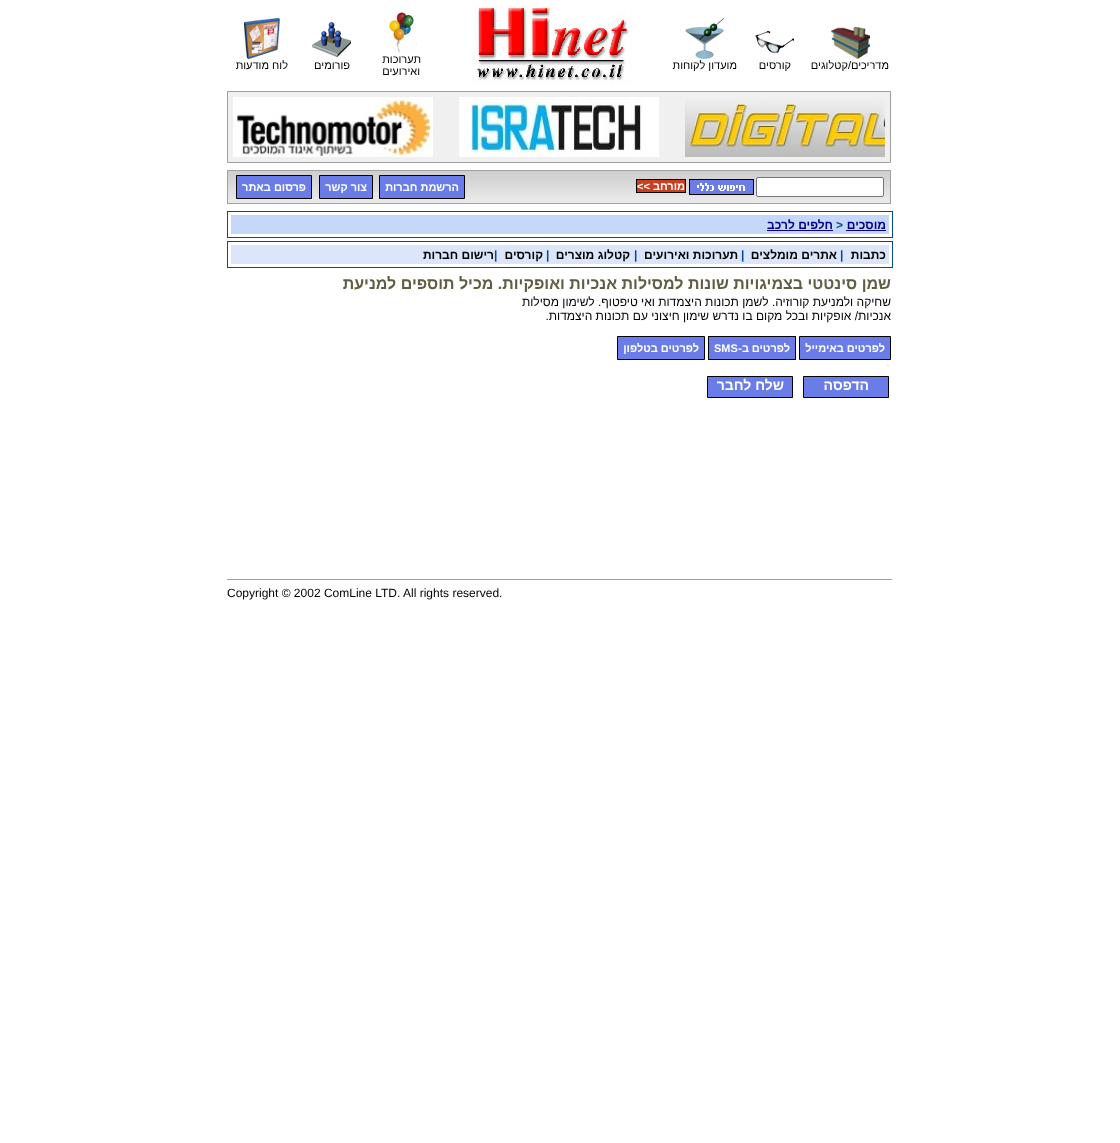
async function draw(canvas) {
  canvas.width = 1120
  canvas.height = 1143
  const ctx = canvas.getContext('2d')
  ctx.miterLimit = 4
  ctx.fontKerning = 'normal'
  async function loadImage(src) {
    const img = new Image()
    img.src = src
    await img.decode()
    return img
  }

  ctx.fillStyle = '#fff'
  ctx.fillRect(0, 0, 1120, 1143)
  ctx.drawImage(await loadImage('image0.png'), 831, 27, 39, 32)
  ctx.direction = 'rtl'
  ctx.font = '11px Liberation Sans'
  ctx.fillStyle = '#000'
  ctx.fillText('מדריכים/קטלוגים', 889, 69)
  ctx.drawImage(await loadImage('image1.png'), 755, 31, 39, 22)
  ctx.fillText('קורסים', 791, 69)
  ctx.drawImage(await loadImage('image2.png'), 685, 18, 39, 41)
  ctx.fillText('מועדון לקוחות', 737, 69)
  ctx.drawImage(await loadImage('image3.png'), 473, 5, 160, 79)
  ctx.drawImage(await loadImage('image4.png'), 387, 12, 30, 41)
  ctx.fillText('תערוכות', 421, 63)
  ctx.fillText('ואירועים', 420, 75)
  ctx.drawImage(await loadImage('image5.png'), 312, 22, 39, 35)
  ctx.fillText('פורומים', 350, 69)
  ctx.drawImage(await loadImage('image6.png'), 244, 18, 36, 41)
  ctx.fillText('לוח מודעות', 288, 69)
  ctx.fillStyle = '#f0f0f0'
  ctx.beginPath()
  ctx.rect(227.5, 91.5, 663, 71)
  ctx.fill()
  ctx.strokeStyle = '#a0a0a0'
  ctx.stroke()
  ctx.drawImage(await loadImage('image7.png'), 685, 97, 200, 60)
  ctx.drawImage(await loadImage('image8.png'), 459, 97, 200, 60)
  ctx.drawImage(await loadImage('image9.png'), 233, 97, 200, 60)
  ctx.drawImage(await loadImage('image10.png'), 228, 171, 662, 32)
  ctx.strokeRect(227.5, 170.5, 663, 33)
  ctx.fillStyle = '#fff'
  ctx.beginPath()
  ctx.roundRect(756.5, 177.5, 127, 19, 1.5)
  ctx.fill()
  ctx.strokeStyle = '#767676'
  ctx.stroke()
  ctx.drawImage(await loadImage('image11.png'), 689, 179, 65, 16)
  ctx.fillStyle = '#ca3f1f'
  ctx.fillRect(637, 180, 48, 12)
  ctx.font = 'bold 11px Liberation Sans'
  ctx.fillStyle = '#fff'
  ctx.fillText('מורחב', 685, 190)
  ctx.fillStyle = '#000'
  ctx.fillRect(636, 179, 50, 1)
  ctx.fillRect(685, 179, 1, 14)
  ctx.fillRect(653, 192, 33, 1)
  ctx.direction = 'ltr'
  ctx.fillStyle = '#fff'
  ctx.fillText('<<', 637, 190)
  ctx.fillStyle = '#000'
  ctx.fillRect(636, 192, 17, 1)
  ctx.fillRect(636, 179, 1, 14)
  ctx.fillStyle = '#6a7ce8'
  ctx.beginPath()
  ctx.rect(379.5, 175.5, 85, 23)
  ctx.fill()
  ctx.strokeStyle = '#000'
  ctx.stroke()
  ctx.direction = 'rtl'
  ctx.fillStyle = '#fff'
  ctx.fillText('הרשמת חברות', 459, 191)
  ctx.fillStyle = '#6a7ce8'
  ctx.beginPath()
  ctx.rect(319.5, 175.5, 53, 23)
  ctx.fill()
  ctx.stroke()
  ctx.fillStyle = '#fff'
  ctx.fillText('צור קשר', 367, 191)
  ctx.fillStyle = '#6a7ce8'
  ctx.beginPath()
  ctx.rect(236.5, 175.5, 75, 23)
  ctx.fill()
  ctx.stroke()
  ctx.fillStyle = '#fff'
  ctx.fillText('פרסום באתר', 306, 191)
  ctx.strokeStyle = '#004c99'
  ctx.strokeRect(227.5, 211.5, 665, 26)
  ctx.fillStyle = '#c6d8fa'
  ctx.fillRect(231, 215, 658, 19)
  ctx.font = 'bold 12px Liberation Sans'
  ctx.fillStyle = '#00008c'
  ctx.fillText('מוסכים', 886, 229)
  ctx.fillRect(846, 230, 40, 1)
  ctx.direction = 'ltr'
  ctx.fillStyle = '#004c99'
  ctx.fillText('>', 836, 229)
  ctx.direction = 'rtl'
  ctx.fillStyle = '#00008c'
  ctx.fillText('חלפים לרכב', 833, 229)
  ctx.fillRect(767, 230, 66, 1)
  ctx.strokeRect(227.5, 241.5, 665, 26)
  ctx.fillStyle = '#dbe6fb'
  ctx.fillRect(231, 245, 658, 19)
  ctx.fillStyle = '#000'
  ctx.fillText('כתבות', 886, 259)
  ctx.direction = 'ltr'
  ctx.fillStyle = '#004c99'
  ctx.fillText('|', 840, 259)
  ctx.direction = 'rtl'
  ctx.fillStyle = '#000'
  ctx.fillText('אתרים מומלצים', 837, 259)
  ctx.direction = 'ltr'
  ctx.fillStyle = '#004c99'
  ctx.fillText('|', 741, 259)
  ctx.direction = 'rtl'
  ctx.fillStyle = '#000'
  ctx.fillText('תערוכות ואירועים', 738, 259)
  ctx.direction = 'ltr'
  ctx.fillStyle = '#004c99'
  ctx.fillText('|', 634, 259)
  ctx.direction = 'rtl'
  ctx.fillStyle = '#000'
  ctx.fillText('קטלוג מוצרים', 630, 259)
  ctx.direction = 'ltr'
  ctx.fillStyle = '#004c99'
  ctx.fillText('|', 546, 259)
  ctx.direction = 'rtl'
  ctx.fillStyle = '#000'
  ctx.fillText('קורסים', 543, 259)
  ctx.direction = 'ltr'
  ctx.fillStyle = '#004c99'
  ctx.fillText('|', 494, 259)
  ctx.direction = 'rtl'
  ctx.fillStyle = '#000'
  ctx.fillText('רישום חברות', 494, 259)
  ctx.font = 'bold 16px Liberation Sans'
  ctx.fillStyle = '#5f5e42'
  ctx.fillText('שמן סינטטי בצמיגויות שונות למסילות אנכיות ואופקיות. מכיל תוספים למניעת', 891, 289)
  ctx.font = '12px Liberation Sans'
  ctx.fillStyle = '#000'
  ctx.fillText('שחיקה ולמניעת קורוזיה. לשמן תכונות היצמדות ואי טיפטוף. לשימון מסילות', 891, 306)
  ctx.fillText('אנכיות/ אופקיות ובכל מקום בו נדרש שימון חיצוני עם תכונות היצמדות.', 891, 320)
  ctx.fillStyle = '#6a7ce8'
  ctx.beginPath()
  ctx.rect(799.5, 336.5, 91, 23)
  ctx.fill()
  ctx.strokeStyle = '#000'
  ctx.stroke()
  ctx.font = 'bold 11px Liberation Sans'
  ctx.fillStyle = '#fff'
  ctx.fillText('לפרטים באימייל', 885, 352)
  ctx.fillStyle = '#6a7ce8'
  ctx.fillRect(709, 337, 86, 22)
  ctx.fillStyle = '#fff'
  ctx.fillText('לפרטים', 790, 352)
  ctx.fillStyle = '#000'
  ctx.fillRect(708, 336, 88, 1)
  ctx.fillRect(795, 336, 1, 24)
  ctx.fillStyle = '#fff'
  ctx.fillText('ב-', 749, 352)
  ctx.direction = 'ltr'
  ctx.fillText('SMS', 714, 352)
  ctx.fillStyle = '#000'
  ctx.fillRect(708, 359, 30, 1)
  ctx.fillRect(708, 336, 1, 24)
  ctx.fillRect(738, 359, 58, 1)
  ctx.fillStyle = '#6a7ce8'
  ctx.beginPath()
  ctx.rect(617.5, 336.5, 87, 23)
  ctx.fill()
  ctx.stroke()
  ctx.direction = 'rtl'
  ctx.fillStyle = '#fff'
  ctx.fillText('לפרטים בטלפון', 699, 352)
  ctx.fillStyle = '#e3defe'
  ctx.fillRect(887, 365, 2, 1)
  ctx.fillStyle = '#6a7ce8'
  ctx.beginPath()
  ctx.rect(803.5, 376.5, 85, 21)
  ctx.fill()
  ctx.stroke()
  ctx.font = 'bold 14px Liberation Sans'
  ctx.fillStyle = '#fff'
  ctx.fillText('הדפסה', 869, 390)
  ctx.fillStyle = '#6a7ce8'
  ctx.beginPath()
  ctx.rect(707.5, 376.5, 85, 21)
  ctx.fill()
  ctx.stroke()
  ctx.fillStyle = '#fff'
  ctx.fillText('שלח לחבר', 784, 390)
  ctx.fillStyle = '#9f9f9f'
  ctx.fillRect(227, 579, 666, 1)
  ctx.fillStyle = '#eee'
  ctx.fillRect(892, 579, 1, 1)
  ctx.direction = 'ltr'
  ctx.font = '12px Liberation Sans'
  ctx.fillStyle = '#000'
  ctx.fillText('Copyright © 2002 ComLine LTD. All rights reserved.', 227, 597)
}

draw(document.querySelector('canvas'))
